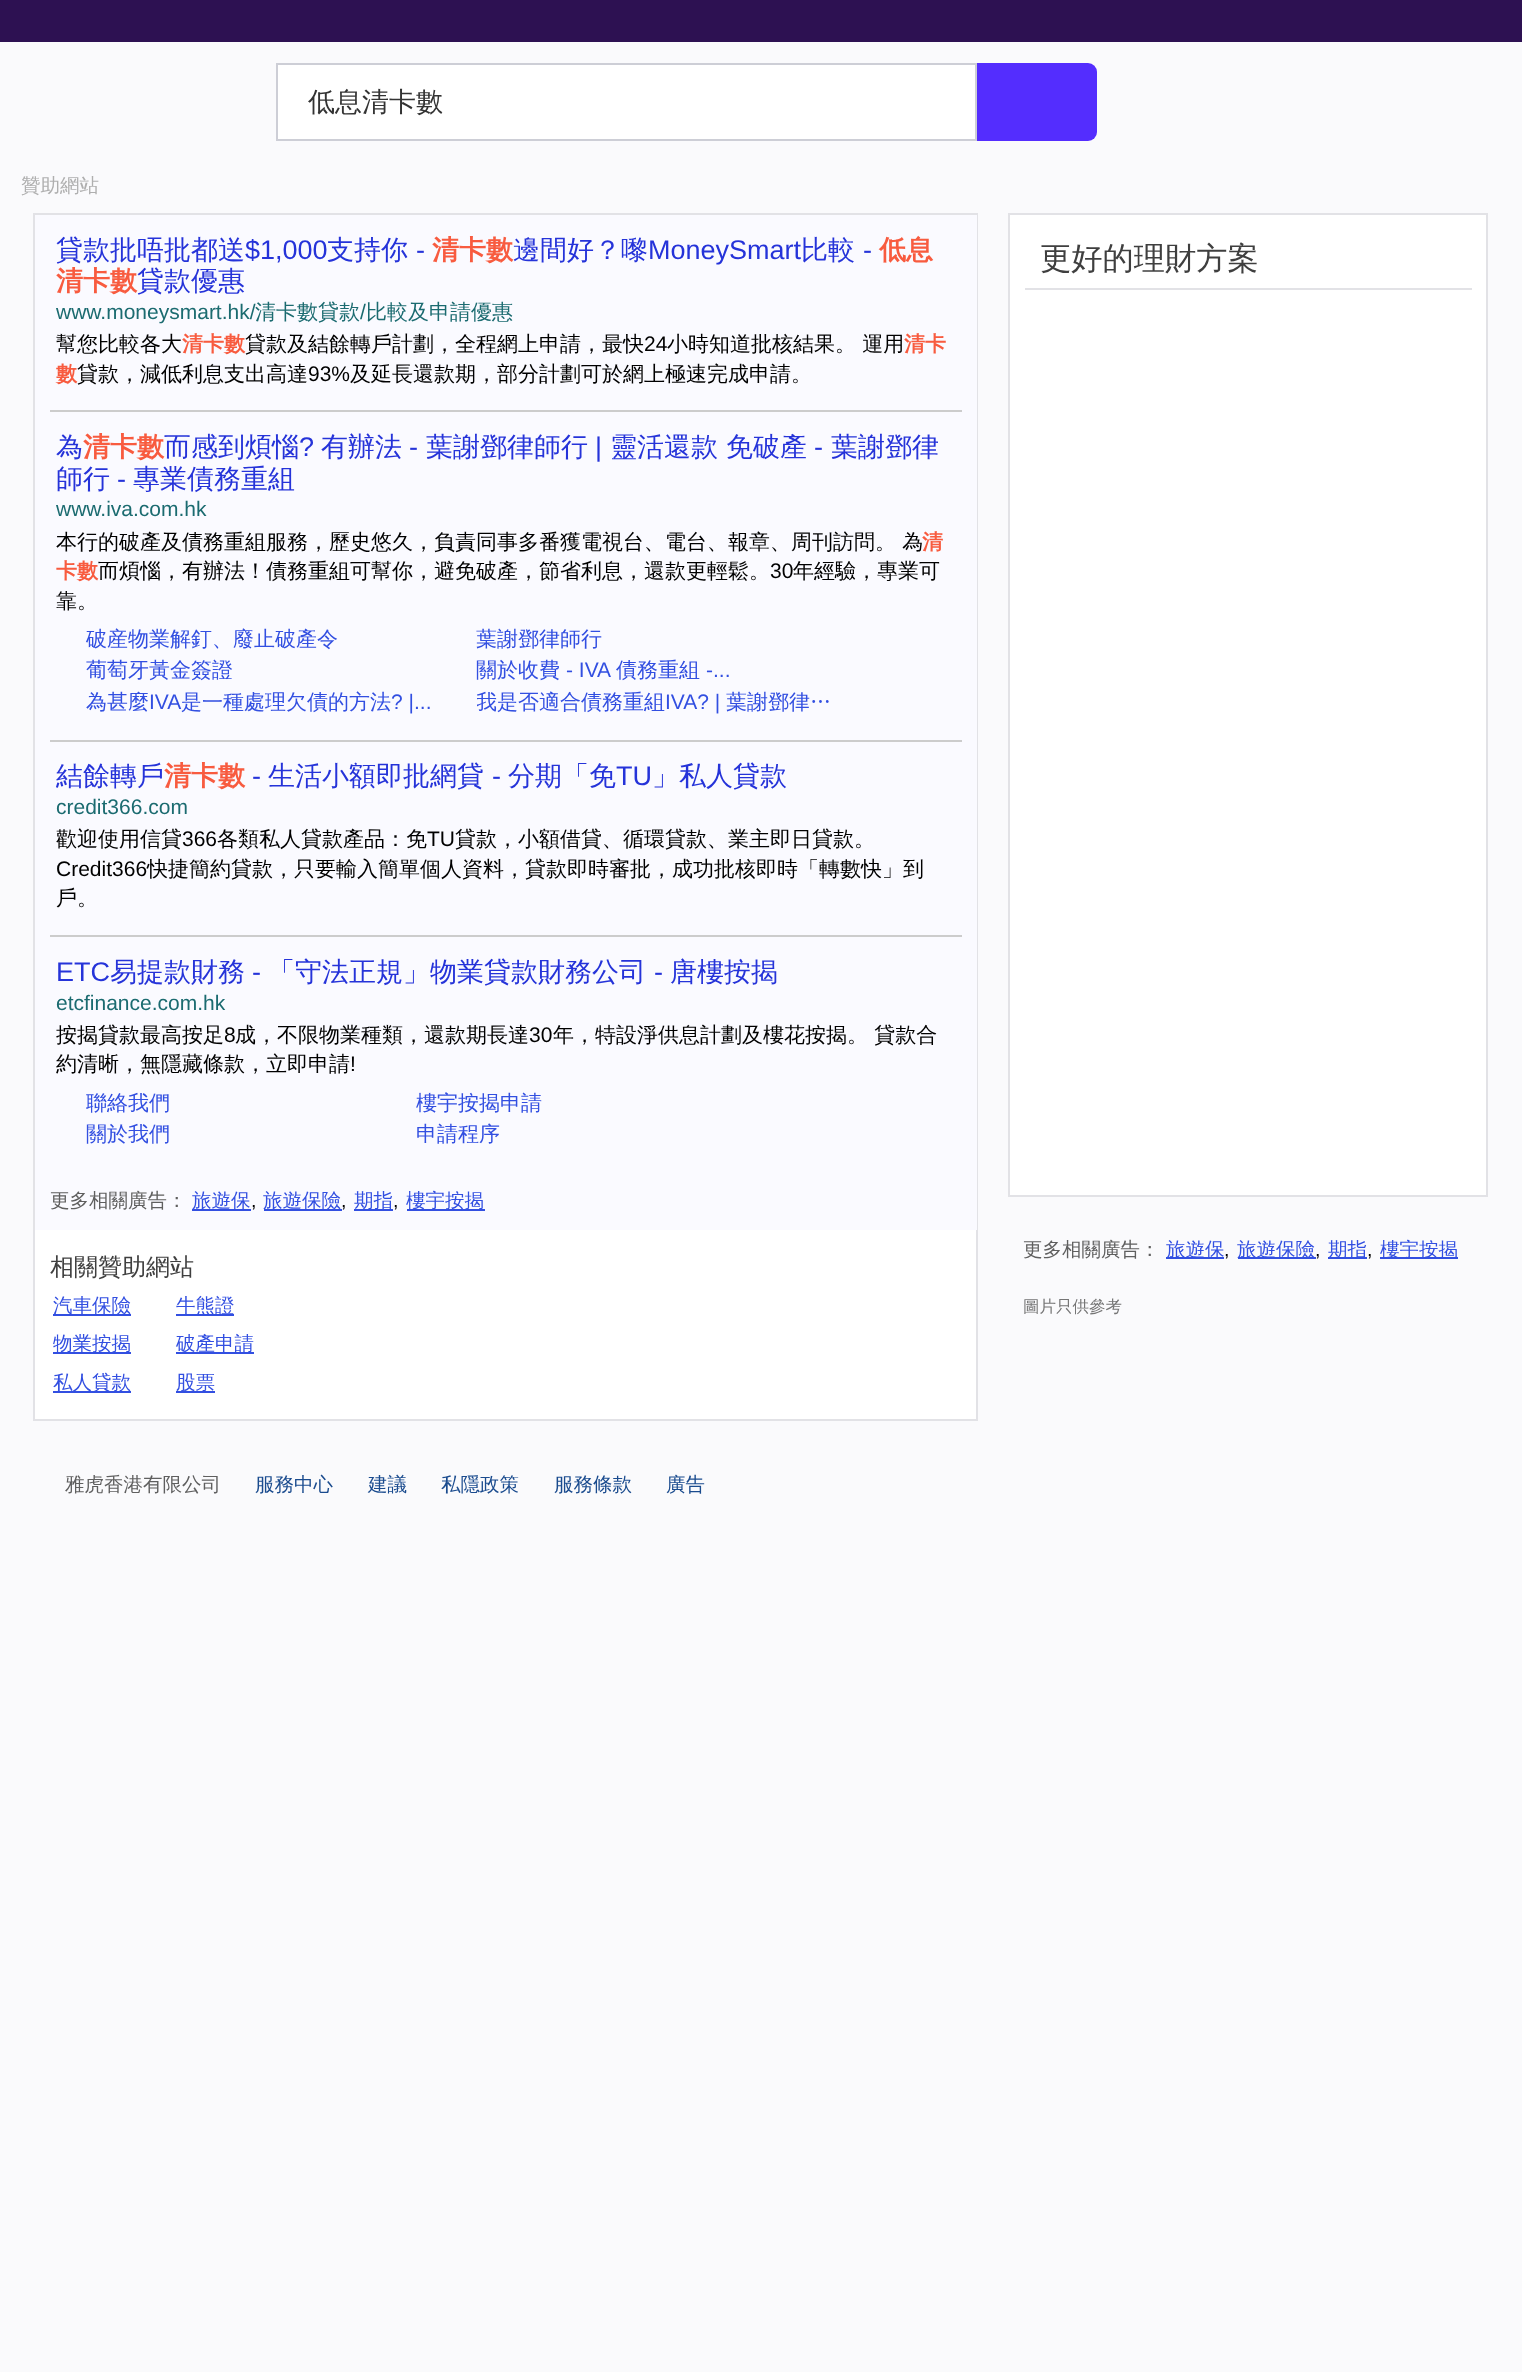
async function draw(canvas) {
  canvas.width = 1522
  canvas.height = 2372
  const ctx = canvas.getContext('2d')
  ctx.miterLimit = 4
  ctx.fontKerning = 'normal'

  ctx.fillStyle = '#fafafc'
  ctx.fillRect(0, 0, 1522, 2372)
  ctx.fillStyle = '#2d1152'
  ctx.fillRect(0, 0, 1522, 42)
  ctx.fillStyle = '#fff'
  ctx.beginPath()
  ctx.rect(277, 64, 699, 76)
  ctx.fill()
  ctx.strokeStyle = '#cdced6'
  ctx.lineWidth = 2
  ctx.stroke()
  ctx.font = '500 27px WenQuanYi Zen Hei'
  ctx.fillStyle = '#333'
  ctx.fillText('低息清卡數', 308, 111)
  ctx.fillStyle = '#542dfe'
  ctx.beginPath()
  ctx.roundRect(977, 63, 120, 78, [0, 9, 9, 0])
  ctx.fill()
  ctx.font = '500 19.5px WenQuanYi Zen Hei'
  ctx.fillStyle = '#afafaf'
  ctx.fillText('贊助網站', 21, 192)
  ctx.fillStyle = '#fff'
  ctx.fillRect(35, 1230, 941, 189)
  ctx.strokeStyle = '#e2e2e6'
  ctx.strokeRect(34, 214, 943, 1206)
  ctx.fillStyle = '#fafaff'
  ctx.fillRect(35, 215, 942, 1015)
  ctx.font = '500 27px WenQuanYi Zen Hei'
  ctx.fillStyle = '#2533d9'
  ctx.fillText('貸款批唔批都送', 56, 259)
  ctx.font = '27px Liberation Sans'
  ctx.fillText('$1,000', 245, 259)
  ctx.font = '500 27px WenQuanYi Zen Hei'
  ctx.fillText('支持你', 327, 259)
  ctx.font = '27px Liberation Sans'
  ctx.fillText('-', 416, 259)
  ctx.font = 'bold 27px WenQuanYi Zen Hei'
  ctx.fillStyle = '#f85b3f'
  ctx.fillText('清卡數', 432, 259)
  ctx.font = '500 27px WenQuanYi Zen Hei'
  ctx.fillStyle = '#2533d9'
  ctx.fillText('邊間好？嚟', 513, 259)
  ctx.font = '27px Liberation Sans'
  ctx.fillText('MoneySmart', 648, 259)
  ctx.font = '500 27px WenQuanYi Zen Hei'
  ctx.fillText('比較', 801, 259)
  ctx.font = '27px Liberation Sans'
  ctx.fillText('-', 863, 259)
  ctx.font = 'bold 27px WenQuanYi Zen Hei'
  ctx.fillStyle = '#f85b3f'
  ctx.fillText('低息', 879, 259)
  ctx.fillText('清卡數', 56, 290)
  ctx.font = '500 27px WenQuanYi Zen Hei'
  ctx.fillStyle = '#2533d9'
  ctx.fillText('貸款優惠', 137, 290)
  ctx.font = '21px Liberation Sans'
  ctx.fillStyle = '#1b6b70'
  ctx.fillText('www.moneysmart.hk/', 56, 319)
  ctx.font = '500 21px WenQuanYi Zen Hei'
  ctx.fillText('清卡數貸款', 255, 319)
  ctx.font = '21px Liberation Sans'
  ctx.fillText('/', 360, 319)
  ctx.font = '500 21px WenQuanYi Zen Hei'
  ctx.fillText('比較及申請優惠', 366, 319)
  ctx.fillStyle = '#000'
  ctx.fillText('幫您比較各大', 56, 351)
  ctx.font = 'bold 21px WenQuanYi Zen Hei'
  ctx.fillStyle = '#f85b3f'
  ctx.fillText('清卡數', 182, 351)
  ctx.font = '500 21px WenQuanYi Zen Hei'
  ctx.fillStyle = '#000'
  ctx.fillText('貸款及結餘轉戶計劃，全程網上申請，最快', 245, 351)
  ctx.font = '21px Liberation Sans'
  ctx.fillText('24', 644, 351)
  ctx.font = '500 21px WenQuanYi Zen Hei'
  ctx.fillText('小時知道批核結果。 運用', 667, 351)
  ctx.font = 'bold 21px WenQuanYi Zen Hei'
  ctx.fillStyle = '#f85b3f'
  ctx.fillText('清卡', 904, 351)
  ctx.fillText('數', 56, 381)
  ctx.font = '500 21px WenQuanYi Zen Hei'
  ctx.fillStyle = '#000'
  ctx.fillText('貸款，減低利息支出高達', 77, 381)
  ctx.font = '21px Liberation Sans'
  ctx.fillText('93%', 308, 381)
  ctx.font = '500 21px WenQuanYi Zen Hei'
  ctx.fillText('及延長還款期，部分計劃可於網上極速完成申請。', 350, 381)
  ctx.fillStyle = '#ccc'
  ctx.fillRect(50, 410, 912, 2)
  ctx.font = '500 27px WenQuanYi Zen Hei'
  ctx.fillStyle = '#2533d9'
  ctx.fillText('為', 56, 456)
  ctx.font = 'bold 27px WenQuanYi Zen Hei'
  ctx.fillStyle = '#f85b3f'
  ctx.fillText('清卡數', 83, 456)
  ctx.font = '500 27px WenQuanYi Zen Hei'
  ctx.fillStyle = '#2533d9'
  ctx.fillText('而感到煩惱', 164, 456)
  ctx.font = '27px Liberation Sans'
  ctx.fillText('?', 299, 456)
  ctx.font = '500 27px WenQuanYi Zen Hei'
  ctx.fillText('有辦法', 321, 456)
  ctx.font = '27px Liberation Sans'
  ctx.fillText('-', 409, 456)
  ctx.font = '500 27px WenQuanYi Zen Hei'
  ctx.fillText('葉謝鄧律師行', 426, 456)
  ctx.font = '27px Liberation Sans'
  ctx.fillText('|', 595, 456)
  ctx.font = '500 27px WenQuanYi Zen Hei'
  ctx.fillText('靈活還款 免破產', 610, 456)
  ctx.font = '27px Liberation Sans'
  ctx.fillText('-', 814, 456)
  ctx.font = '500 27px WenQuanYi Zen Hei'
  ctx.fillText('葉謝鄧律', 831, 456)
  ctx.fillText('師行', 56, 488)
  ctx.font = '27px Liberation Sans'
  ctx.fillText('-', 117, 488)
  ctx.font = '500 27px WenQuanYi Zen Hei'
  ctx.fillText('專業債務重組', 133, 488)
  ctx.font = '21px Liberation Sans'
  ctx.fillStyle = '#1b6b70'
  ctx.fillText('www.iva.com.hk', 56, 516)
  ctx.font = '500 21px WenQuanYi Zen Hei'
  ctx.fillStyle = '#000'
  ctx.fillText('本行的破產及債務重組服務，歷史悠久，負責同事多番獲電視台、電台、報章、周刊訪問。 為', 56, 549)
  ctx.font = 'bold 21px WenQuanYi Zen Hei'
  ctx.fillStyle = '#f85b3f'
  ctx.fillText('清', 922, 549)
  ctx.fillText('卡數', 56, 578)
  ctx.font = '500 21px WenQuanYi Zen Hei'
  ctx.fillStyle = '#000'
  ctx.fillText('而煩惱，有辦法！債務重組可幫你，避免破產，節省利息，還款更輕鬆。', 98, 578)
  ctx.font = '21px Liberation Sans'
  ctx.fillText('30', 770, 578)
  ctx.font = '500 21px WenQuanYi Zen Hei'
  ctx.fillText('年經驗，專業可', 793, 578)
  ctx.fillText('靠。', 56, 608)
  ctx.fillStyle = '#324fe1'
  ctx.fillText('破産物業解釘、廢止破產令', 86, 646)
  ctx.fillText('葡萄牙黃金簽證', 86, 677)
  ctx.fillText('為甚麼', 86, 709)
  ctx.font = '21px Liberation Sans'
  ctx.fillText('IVA', 149, 709)
  ctx.font = '500 21px WenQuanYi Zen Hei'
  ctx.fillText('是一種處理欠債的方法', 181, 709)
  ctx.font = '21px Liberation Sans'
  ctx.fillText('? |...', 391, 709)
  ctx.font = '500 21px WenQuanYi Zen Hei'
  ctx.fillText('葉謝鄧律師行', 476, 646)
  ctx.fillText('關於收費', 476, 677)
  ctx.font = '21px Liberation Sans'
  ctx.fillText('- IVA', 566, 677)
  ctx.font = '500 21px WenQuanYi Zen Hei'
  ctx.fillText('債務重組', 616, 677)
  ctx.font = '21px Liberation Sans'
  ctx.fillText('-...', 706, 677)
  ctx.save()
  ctx.beginPath()
  ctx.rect(477, 687, 360, 32)
  ctx.clip()
  ctx.font = '500 21px WenQuanYi Zen Hei'
  ctx.fillText('我是否適合債務重組', 476, 709)
  ctx.restore()
  ctx.fillText('IVA? |', 665, 709)
  ctx.font = '500 21px WenQuanYi Zen Hei'
  ctx.fillText('葉謝鄧律…', 726, 709)
  ctx.fillStyle = '#ccc'
  ctx.fillRect(50, 740, 912, 2)
  ctx.save()
  ctx.beginPath()
  ctx.rect(56, 762, 900, 152)
  ctx.clip()
  ctx.font = '500 27px WenQuanYi Zen Hei'
  ctx.fillStyle = '#2533d9'
  ctx.fillText('結餘轉戶', 56, 785)
  ctx.restore()
  ctx.font = 'bold 27px WenQuanYi Zen Hei'
  ctx.fillStyle = '#f85b3f'
  ctx.fillText('清卡數', 164, 785)
  ctx.font = '27px Liberation Sans'
  ctx.fillStyle = '#2533d9'
  ctx.fillText('-', 252, 785)
  ctx.font = '500 27px WenQuanYi Zen Hei'
  ctx.fillText('生活小額即批網貸', 268, 785)
  ctx.font = '27px Liberation Sans'
  ctx.fillText('-', 492, 785)
  ctx.font = '500 27px WenQuanYi Zen Hei'
  ctx.fillText('分期「免', 508, 785)
  ctx.font = '27px Liberation Sans'
  ctx.fillText('TU', 616, 785)
  ctx.font = '500 27px WenQuanYi Zen Hei'
  ctx.fillText('」私人貸款', 652, 785)
  ctx.font = '21px Liberation Sans'
  ctx.fillStyle = '#1b6b70'
  ctx.fillText('credit366.com', 56, 814)
  ctx.font = '500 21px WenQuanYi Zen Hei'
  ctx.fillStyle = '#000'
  ctx.fillText('歡迎使用信貸', 56, 846)
  ctx.font = '21px Liberation Sans'
  ctx.fillText('366', 182, 846)
  ctx.font = '500 21px WenQuanYi Zen Hei'
  ctx.fillText('各類私人貸款產品：免', 217, 846)
  ctx.font = '21px Liberation Sans'
  ctx.fillText('TU', 427, 846)
  ctx.font = '500 21px WenQuanYi Zen Hei'
  ctx.fillText('貸款，小額借貸、循環貸款、業主即日貸款。', 455, 846)
  ctx.font = '21px Liberation Sans'
  ctx.fillText('Credit366', 56, 876)
  ctx.font = '500 21px WenQuanYi Zen Hei'
  ctx.fillText('快捷簡約貸款，只要輸入簡單個人資料，貸款即時審批，成功批核即時「轉數快」到', 147, 876)
  ctx.fillText('戶。', 56, 905)
  ctx.fillStyle = '#ccc'
  ctx.fillRect(50, 935, 912, 2)
  ctx.font = '27px Liberation Sans'
  ctx.fillStyle = '#2533d9'
  ctx.fillText('ETC', 56, 981)
  ctx.font = '500 27px WenQuanYi Zen Hei'
  ctx.fillText('易提款財務', 110, 981)
  ctx.font = '27px Liberation Sans'
  ctx.fillText('-', 252, 981)
  ctx.font = '500 27px WenQuanYi Zen Hei'
  ctx.fillText('「守法正規」物業貸款財務公司', 268, 981)
  ctx.font = '27px Liberation Sans'
  ctx.fillText('-', 654, 981)
  ctx.font = '500 27px WenQuanYi Zen Hei'
  ctx.fillText('唐樓按揭', 670, 981)
  ctx.font = '21px Liberation Sans'
  ctx.fillStyle = '#1b6b70'
  ctx.fillText('etcfinance.com.hk', 56, 1010)
  ctx.font = '500 21px WenQuanYi Zen Hei'
  ctx.fillStyle = '#000'
  ctx.fillText('按揭貸款最高按足', 56, 1042)
  ctx.font = '21px Liberation Sans'
  ctx.fillText('8', 224, 1042)
  ctx.font = '500 21px WenQuanYi Zen Hei'
  ctx.fillText('成，不限物業種類，還款期長達', 235, 1042)
  ctx.font = '21px Liberation Sans'
  ctx.fillText('30', 529, 1042)
  ctx.font = '500 21px WenQuanYi Zen Hei'
  ctx.fillText('年，特設淨供息計劃及樓花按揭。 貸款合', 553, 1042)
  ctx.fillText('約清晰，無隱藏條款，立即申請', 56, 1071)
  ctx.font = '21px Liberation Sans'
  ctx.fillText('!', 350, 1071)
  ctx.save()
  ctx.beginPath()
  ctx.rect(86, 1088, 285, 31)
  ctx.clip()
  ctx.font = '500 21px WenQuanYi Zen Hei'
  ctx.fillStyle = '#324fe1'
  ctx.fillText('聯絡我們', 86, 1110)
  ctx.restore()
  ctx.font = '500 21px WenQuanYi Zen Hei'
  ctx.fillStyle = '#324fe1'
  ctx.fillText('關於我們', 86, 1141)
  ctx.fillText('樓宇按揭申請', 416, 1110)
  ctx.fillText('申請程序', 416, 1141)
  ctx.font = '500 19.5px WenQuanYi Zen Hei'
  ctx.fillStyle = '#5f5f5f'
  ctx.fillText('更多相關廣告：', 50, 1207)
  ctx.fillStyle = '#324fe1'
  ctx.fillRect(192, 1209, 59, 2)
  ctx.fillText('旅遊保', 192, 1207)
  ctx.font = '19.5px Liberation Sans'
  ctx.fillStyle = '#000'
  ctx.fillText(',', 251, 1207)
  ctx.fillStyle = '#324fe1'
  ctx.fillRect(264, 1209, 78, 2)
  ctx.font = '500 19.5px WenQuanYi Zen Hei'
  ctx.fillText('旅遊保險', 263, 1207)
  ctx.font = '19.5px Liberation Sans'
  ctx.fillStyle = '#000'
  ctx.fillText(',', 341, 1207)
  ctx.fillStyle = '#324fe1'
  ctx.fillRect(354, 1209, 39, 2)
  ctx.font = '500 19.5px WenQuanYi Zen Hei'
  ctx.fillText('期指', 354, 1207)
  ctx.font = '19.5px Liberation Sans'
  ctx.fillStyle = '#000'
  ctx.fillText(',', 393, 1207)
  ctx.fillStyle = '#324fe1'
  ctx.fillRect(407, 1209, 78, 2)
  ctx.font = '500 19.5px WenQuanYi Zen Hei'
  ctx.fillText('樓宇按揭', 406, 1207)
  ctx.font = '500 24px WenQuanYi Zen Hei'
  ctx.fillStyle = '#3f3f3f'
  ctx.fillText('相關贊助網站', 50, 1275)
  ctx.fillStyle = '#324fe1'
  ctx.fillRect(53, 1314, 78, 2)
  ctx.font = '500 19.5px WenQuanYi Zen Hei'
  ctx.fillText('汽車保險', 53, 1312)
  ctx.fillRect(176, 1314, 58, 2)
  ctx.fillText('牛熊證', 176, 1312)
  ctx.fillRect(53, 1352, 78, 2)
  ctx.fillText('物業按揭', 53, 1350)
  ctx.fillRect(176, 1352, 78, 2)
  ctx.fillText('破產申請', 176, 1350)
  ctx.fillRect(53, 1391, 78, 2)
  ctx.fillText('私人貸款', 53, 1389)
  ctx.fillRect(176, 1391, 39, 2)
  ctx.fillText('股票', 176, 1389)
  ctx.fillStyle = '#fff'
  ctx.beginPath()
  ctx.rect(1009, 214, 478, 982)
  ctx.fill()
  ctx.stroke()
  ctx.fillStyle = '#e2e2e6'
  ctx.fillRect(1025, 288, 447, 2)
  ctx.font = '500 31.25px WenQuanYi Zen Hei'
  ctx.fillStyle = '#3f3f3f'
  ctx.fillText('更好的理財方案', 1040, 269)
  ctx.font = '500 19.5px WenQuanYi Zen Hei'
  ctx.fillStyle = '#5f5f5f'
  ctx.fillText('更多相關廣告：', 1023, 1256)
  ctx.fillStyle = '#324fe1'
  ctx.fillRect(1166, 1257, 58, 2)
  ctx.fillText('旅遊保', 1166, 1256)
  ctx.font = '19.5px Liberation Sans'
  ctx.fillStyle = '#000'
  ctx.fillText(',', 1224, 1256)
  ctx.fillStyle = '#324fe1'
  ctx.fillRect(1238, 1257, 78, 2)
  ctx.font = '500 19.5px WenQuanYi Zen Hei'
  ctx.fillText('旅遊保險', 1237, 1256)
  ctx.font = '19.5px Liberation Sans'
  ctx.fillStyle = '#000'
  ctx.fillText(',', 1315, 1256)
  ctx.fillStyle = '#324fe1'
  ctx.fillRect(1328, 1257, 39, 2)
  ctx.font = '500 19.5px WenQuanYi Zen Hei'
  ctx.fillText('期指', 1328, 1256)
  ctx.font = '19.5px Liberation Sans'
  ctx.fillStyle = '#000'
  ctx.fillText(',', 1367, 1256)
  ctx.fillStyle = '#324fe1'
  ctx.fillRect(1380, 1257, 78, 2)
  ctx.font = '500 19.5px WenQuanYi Zen Hei'
  ctx.fillText('樓宇按揭', 1380, 1256)
  ctx.font = '500 16.5px WenQuanYi Zen Hei'
  ctx.fillStyle = '#757575'
  ctx.fillText('圖片只供參考', 1023, 1312)
  ctx.font = '500 19.5px WenQuanYi Zen Hei'
  ctx.fillStyle = '#5f5f5f'
  ctx.fillText('雅虎香港有限公司', 65, 1491)
  ctx.fillStyle = '#1a4b8e'
  ctx.fillText('服務中心', 255, 1491)
  ctx.fillText('建議', 368, 1491)
  ctx.fillText('私隱政策', 441, 1491)
  ctx.fillText('服務條款', 554, 1491)
  ctx.fillText('廣告', 666, 1491)
}

draw(document.querySelector('canvas'))
